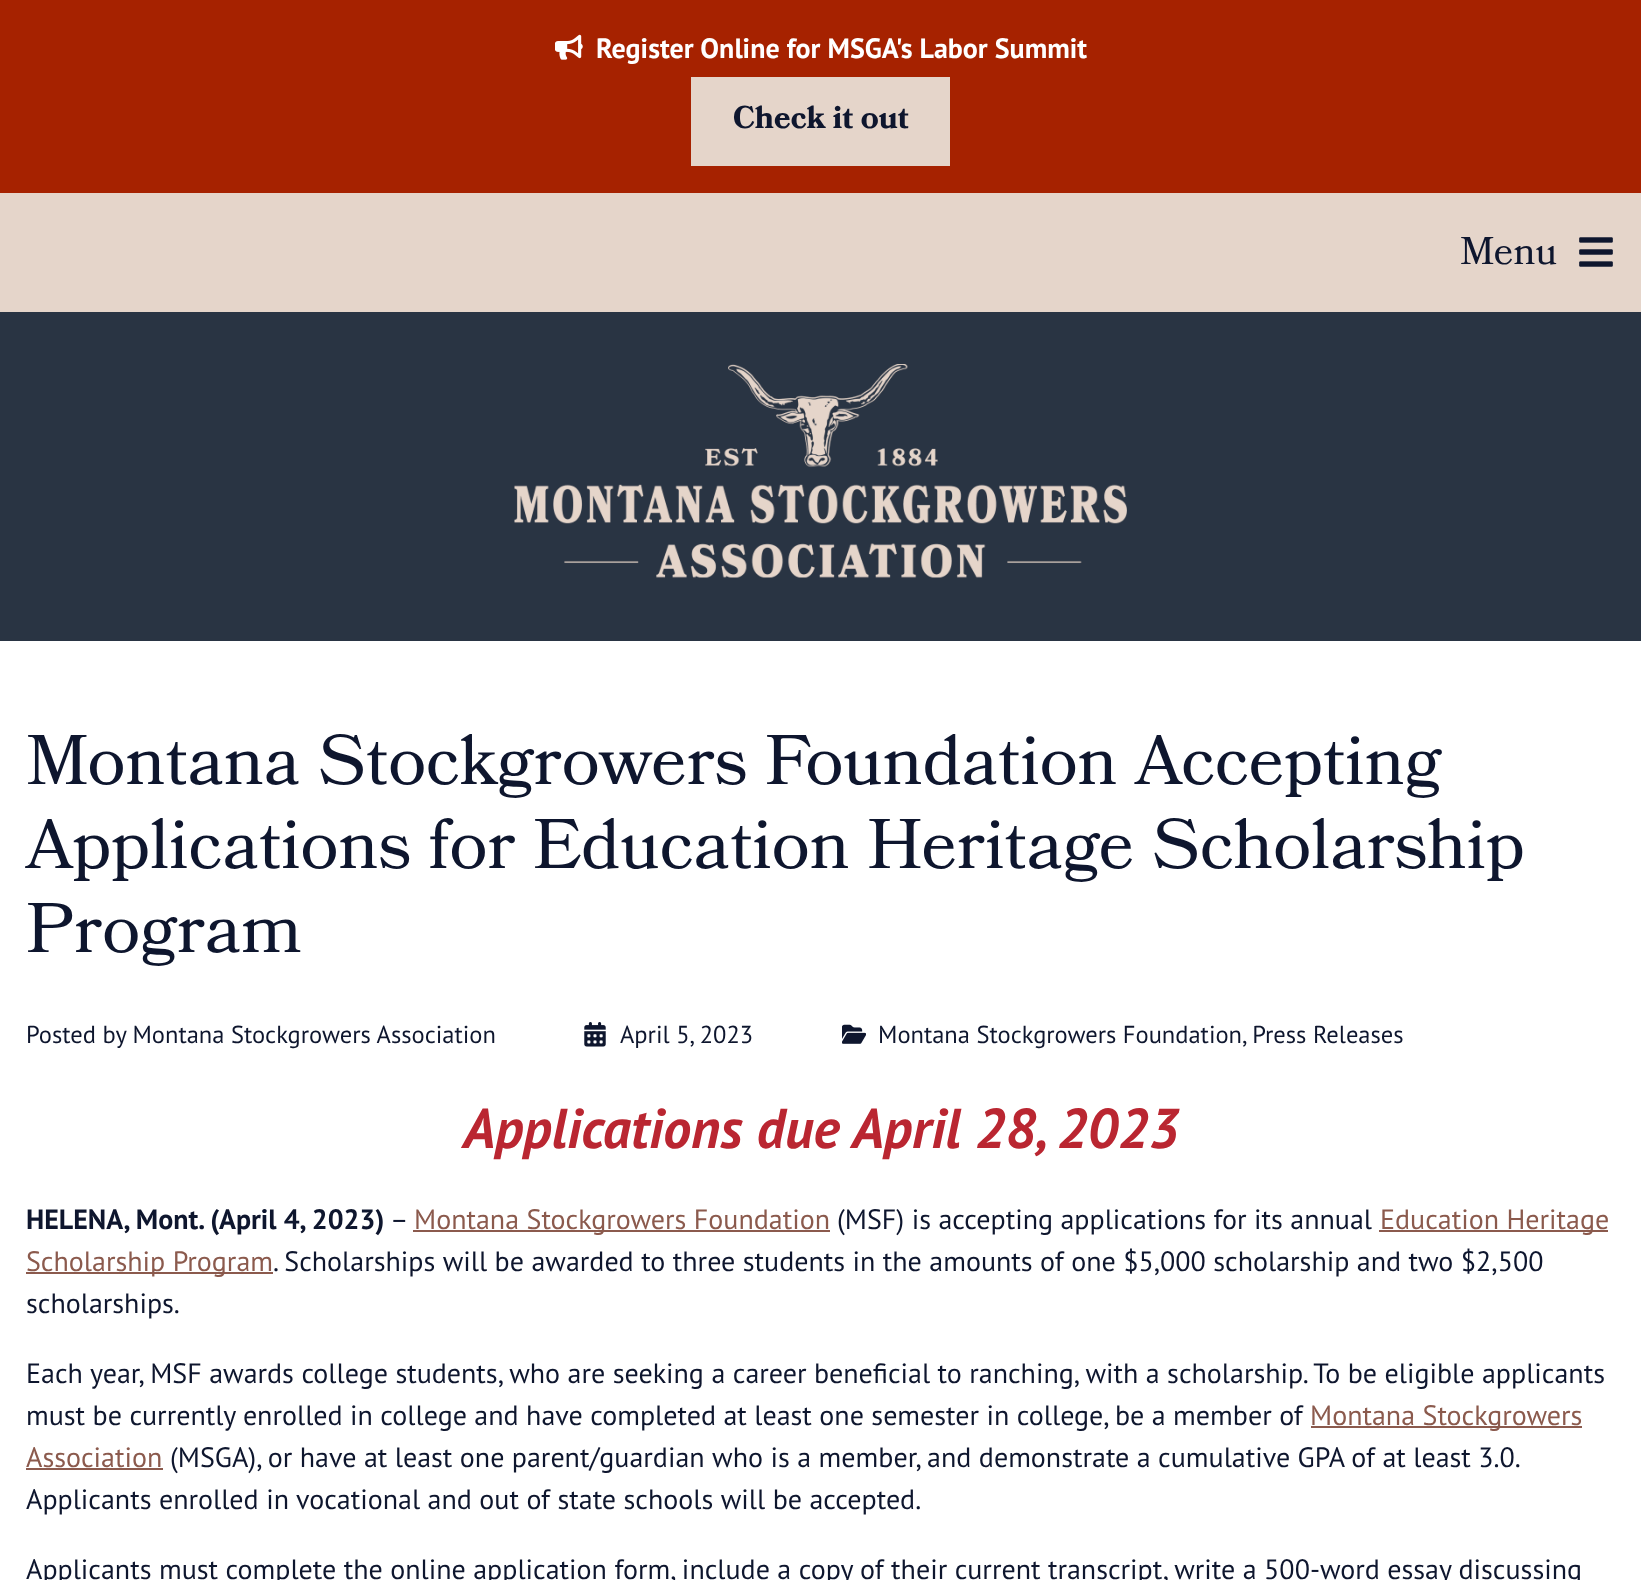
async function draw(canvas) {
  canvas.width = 1641
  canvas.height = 1580
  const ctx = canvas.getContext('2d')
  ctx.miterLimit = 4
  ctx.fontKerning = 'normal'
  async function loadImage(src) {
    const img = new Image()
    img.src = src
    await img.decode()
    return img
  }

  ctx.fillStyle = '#fff'
  ctx.fillRect(0, 0, 1641, 1580)
  ctx.fillStyle = '#a62200'
  ctx.fillRect(0, 0, 1641, 193)
  ctx.drawImage(await loadImage('image0.png'), 555, 34, 28, 26)
  ctx.font = 'bold 28px PT Sans'
  ctx.fillStyle = '#fff'
  ctx.fillText('Register Online for MSGA\'s Labor Summit', 596, 58)
  ctx.fillStyle = '#e5d5ca'
  ctx.fillRect(691, 77, 259, 89)
  ctx.font = 'bold 31.5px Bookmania'
  ctx.fillStyle = '#0e162e'
  ctx.fillText('Check it out', 733, 128)
  ctx.fillStyle = '#e5d5ca'
  ctx.fillRect(0, 193, 1641, 119)
  ctx.font = '38.5px Bookmania'
  ctx.fillStyle = '#0e162e'
  ctx.fillText('Menu', 1460, 264)
  ctx.drawImage(await loadImage('image1.png'), 1579, 237, 34, 30)
  ctx.fillStyle = '#293443'
  ctx.fillRect(0, 312, 1641, 329)
  ctx.drawImage(await loadImage('image2.png'), 514, 364, 613, 214)
  ctx.font = '70px Bookmania'
  ctx.fillStyle = '#0e162e'
  ctx.fillText('Montana Stockgrowers Foundation Accepting', 26, 784)
  ctx.fillText('Applications for Education Heritage Scholarship', 26, 868)
  ctx.fillText('Program', 26, 952)
  ctx.font = '24.5px PT Sans'
  ctx.fillText('Posted by Montana Stockgrowers Association', 26, 1043)
  ctx.drawImage(await loadImage('image3.png'), 584, 1022, 22, 25)
  ctx.fillText('April 5, 2023', 620, 1043)
  ctx.drawImage(await loadImage('image4.png'), 842, 1024, 24, 20)
  ctx.fillText('Montana Stockgrowers Foundation, Press Releases', 878, 1043)
  ctx.font = 'italic bold 56px PT Sans'
  ctx.fillStyle = '#ba2631'
  ctx.fillText('Applications due April 28, 2023', 463, 1148)
  ctx.font = 'bold 28px PT Sans'
  ctx.fillStyle = '#0e162e'
  ctx.fillText('HELENA, Mont. (April 4, 2023)', 26, 1229)
  ctx.font = '28px PT Sans'
  ctx.fillText('–', 390, 1229)
  ctx.fillStyle = '#8b5a4d'
  ctx.fillRect(413, 1230, 417, 2)
  ctx.fillText('Montana Stockgrowers Foundation', 414, 1229)
  ctx.fillStyle = '#0e162e'
  ctx.fillText('(MSF) is accepting applications for its annual', 837, 1229)
  ctx.fillStyle = '#8b5a4d'
  ctx.fillRect(1379, 1230, 229, 2)
  ctx.fillText('Education Heritage', 1380, 1229)
  ctx.fillRect(26, 1272, 247, 2)
  ctx.fillText('Scholarship Program', 26, 1271)
  ctx.fillStyle = '#0e162e'
  ctx.fillText('. Scholarships will be awarded to three students in the amounts of one $5,000 scholarship and two $2,500', 273, 1271)
  ctx.fillText('scholarships.', 26, 1313)
  ctx.fillText('Each year, MSF awards college students, who are seeking a career beneficial to ranching, with a scholarship. To be eligible applicants', 26, 1383)
  ctx.fillText('must be currently enrolled in college and have completed at least one semester in college, be a member of', 26, 1425)
  ctx.fillStyle = '#8b5a4d'
  ctx.fillRect(1311, 1426, 271, 2)
  ctx.fillText('Montana Stockgrowers', 1310, 1425)
  ctx.fillText('Association', 26, 1467)
  ctx.fillRect(26, 1468, 137, 2)
  ctx.fillStyle = '#0e162e'
  ctx.fillText('(MSGA), or have at least one parent/guardian who is a member, and demonstrate a cumulative GPA of at least 3.0.', 170, 1467)
  ctx.fillText('Applicants enrolled in vocational and out of state schools will be accepted.', 26, 1509)
  ctx.fillText('Applicants must complete the online application form, include a copy of their current transcript, write a 500-word essay discussing', 26, 1579)
}

draw(document.querySelector('canvas'))
